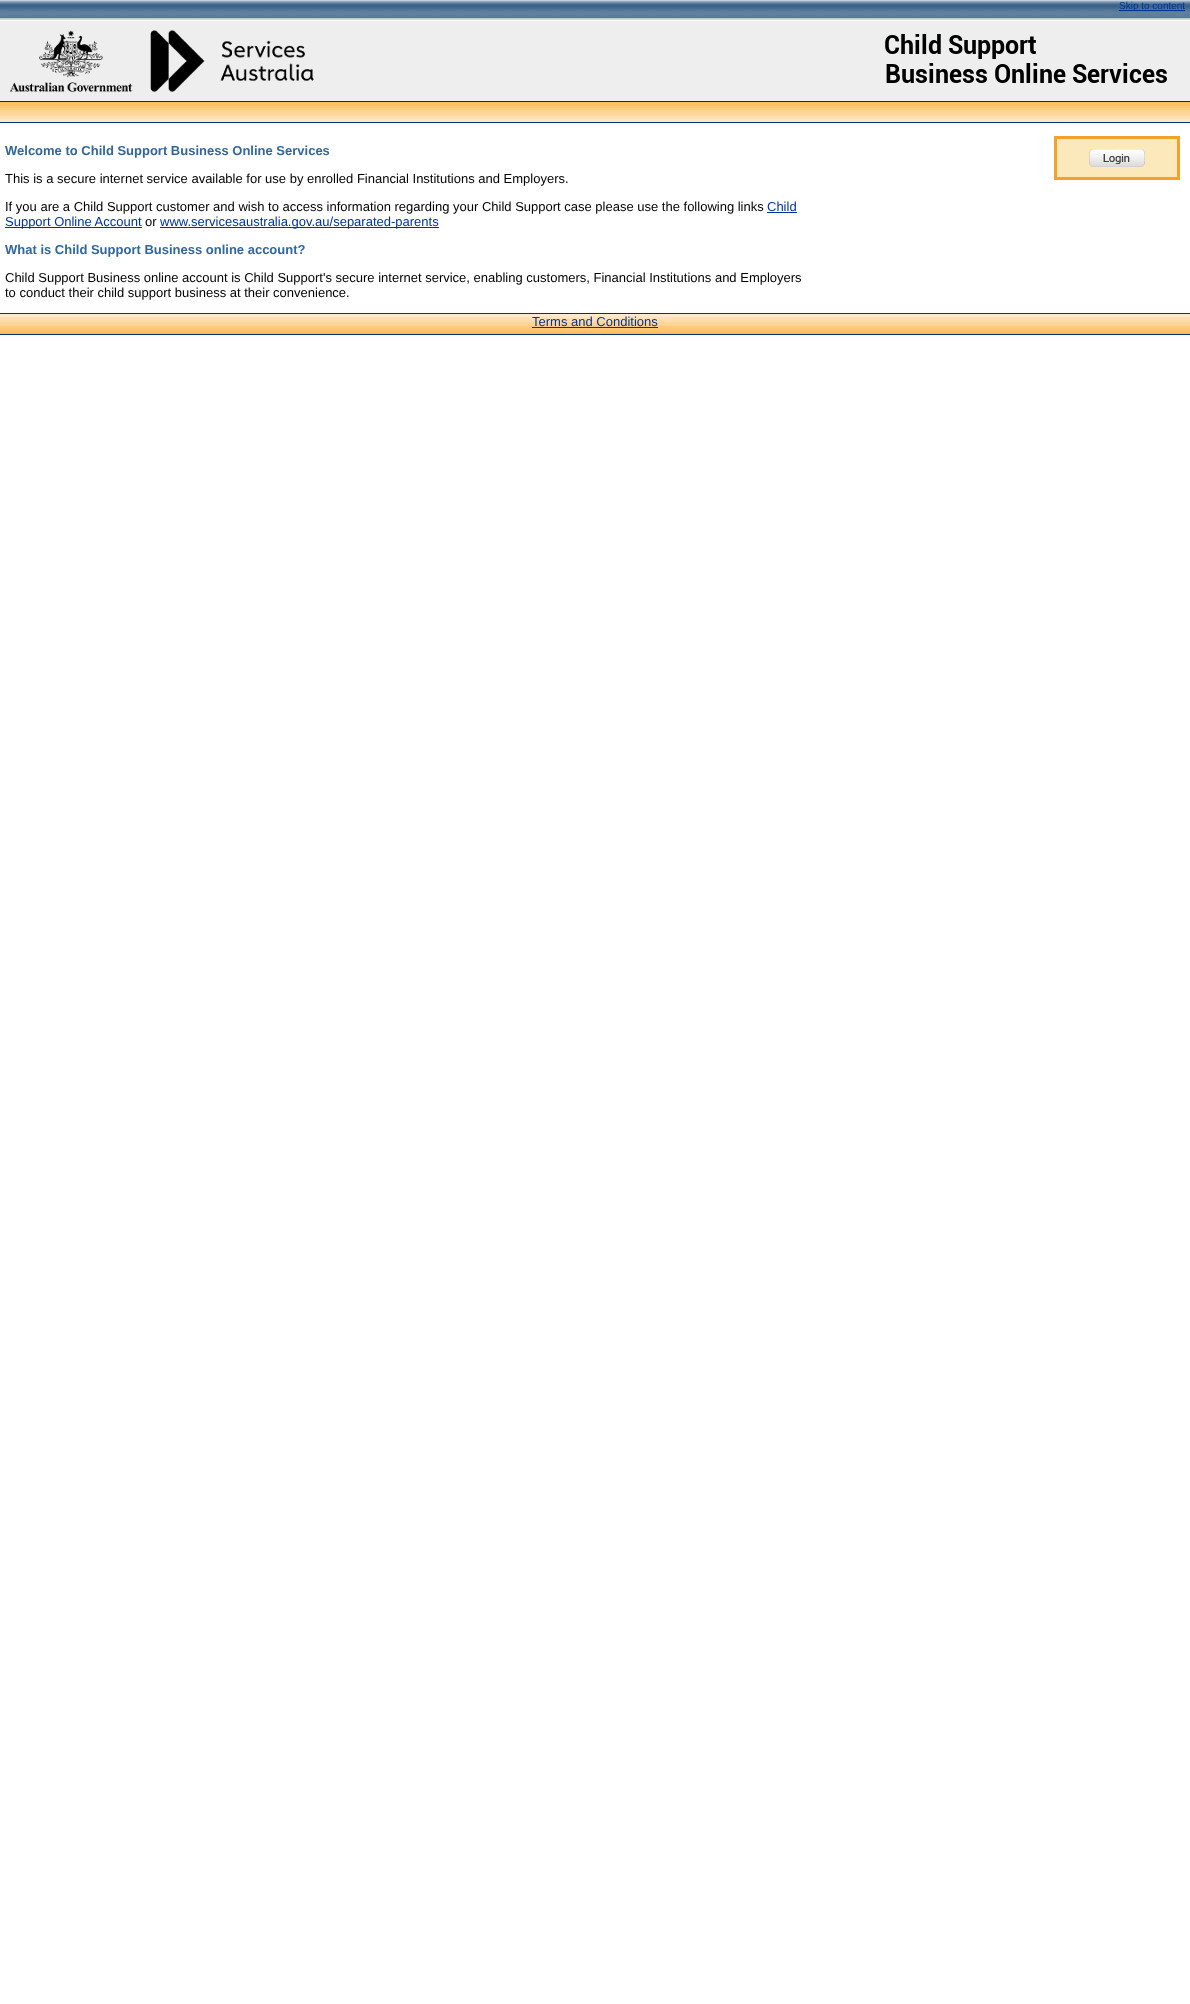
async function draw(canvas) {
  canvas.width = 1190
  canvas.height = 2004
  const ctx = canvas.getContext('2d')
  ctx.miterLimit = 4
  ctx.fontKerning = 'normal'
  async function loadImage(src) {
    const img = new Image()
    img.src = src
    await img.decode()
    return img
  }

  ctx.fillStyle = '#fff'
  ctx.fillRect(0, 0, 1190, 2004)
  ctx.drawImage(await loadImage('image0.png'), 0, 0, 1190, 20)
  ctx.fillStyle = '#039'
  ctx.fillRect(1119, 10, 66, 1)
  ctx.font = '10px Liberation Sans'
  ctx.fillText('Skip to content', 1119, 9)
  ctx.fillStyle = '#eee'
  ctx.fillRect(0, 21, 1190, 80)
  ctx.drawImage(await loadImage('image1.png'), 9, 30, 305, 63)
  ctx.drawImage(await loadImage('image2.png'), 885, 34, 282, 49)
  ctx.drawImage(await loadImage('image3.png'), 0, 102, 1190, 20)
  ctx.fillStyle = '#036'
  ctx.fillRect(0, 101, 1190, 1)
  ctx.fillRect(0, 122, 1190, 1)
  ctx.font = 'bold 13px Liberation Sans'
  ctx.fillStyle = '#369'
  ctx.fillText('Welcome to Child Support Business Online Services', 5, 155)
  ctx.font = '13px Liberation Sans'
  ctx.fillStyle = '#000'
  ctx.fillText('This is a secure internet service available for use by enrolled Financial Institutions and Employers.', 5, 183)
  ctx.fillText('If you are a Child Support customer and wish to access information regarding your Child Support case please use the following links', 5, 211)
  ctx.fillStyle = '#039'
  ctx.fillText('Child', 767, 211)
  ctx.fillRect(767, 212, 30, 1)
  ctx.fillRect(5, 227, 137, 1)
  ctx.fillText('Support Online Account', 5, 226)
  ctx.fillStyle = '#000'
  ctx.fillText('or', 145, 226)
  ctx.fillStyle = '#039'
  ctx.fillRect(160, 227, 279, 1)
  ctx.fillText('www.servicesaustralia.gov.au/separated-parents', 160, 226)
  ctx.font = 'bold 13px Liberation Sans'
  ctx.fillStyle = '#369'
  ctx.fillText('What is Child Support Business online account?', 5, 254)
  ctx.font = '13px Liberation Sans'
  ctx.fillStyle = '#000'
  ctx.fillText('Child Support Business online account is Child Support\'s secure internet service, enabling customers, Financial Institutions and Employers', 5, 282)
  ctx.fillText('to conduct their child support business at their convenience.', 5, 297)
  ctx.fillStyle = '#fbe9bb'
  ctx.beginPath()
  ctx.rect(1055.5, 137.5, 123, 41)
  ctx.fill()
  ctx.strokeStyle = '#f2a12b'
  ctx.lineWidth = 3
  ctx.stroke()
  ctx.drawImage(await loadImage('image4.png'), 1089, 149, 56, 18)
  ctx.drawImage(await loadImage('image5.png'), 0, 314, 1190, 20)
  ctx.fillStyle = '#036'
  ctx.fillRect(0, 313, 1190, 1)
  ctx.fillRect(0, 334, 1190, 1)
  ctx.fillStyle = '#039'
  ctx.fillText('Terms and Conditions', 532, 326)
  ctx.fillRect(532, 327, 126, 1)
}

draw(document.querySelector('canvas'))
